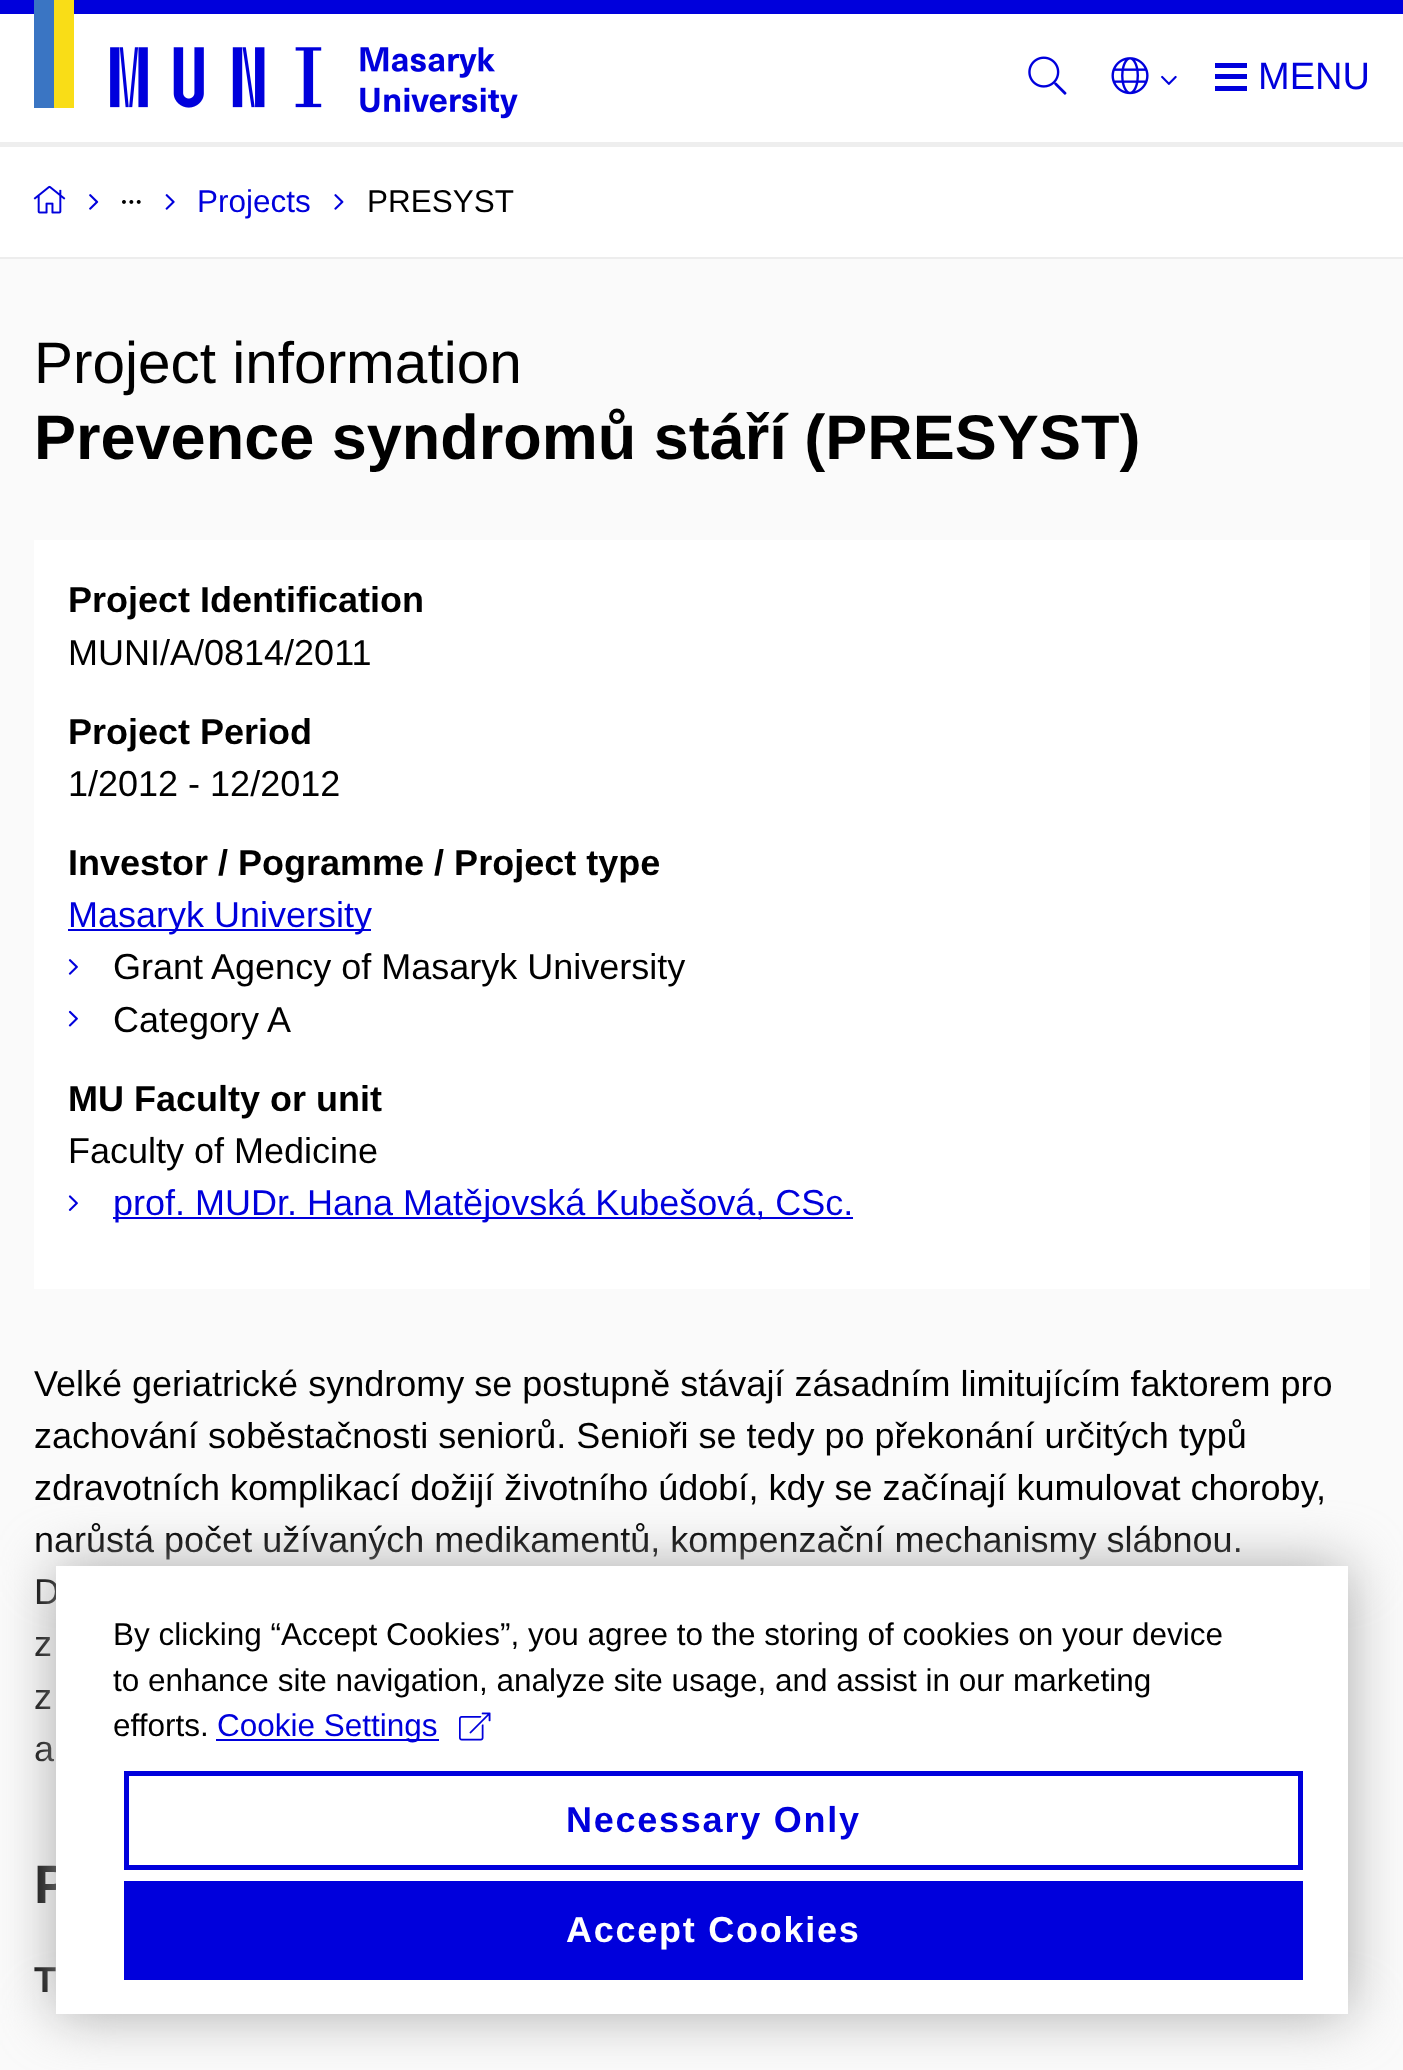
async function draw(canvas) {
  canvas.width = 1403
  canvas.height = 2070
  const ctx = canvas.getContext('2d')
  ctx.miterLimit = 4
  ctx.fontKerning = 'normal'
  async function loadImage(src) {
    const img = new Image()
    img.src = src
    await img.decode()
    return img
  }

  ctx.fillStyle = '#fafafa'
  ctx.fillRect(0, 0, 1403, 2070)
  ctx.fillStyle = '#fff'
  ctx.fillRect(0, 14, 1403, 128)
  ctx.fillStyle = '#0000dc'
  ctx.fillRect(0, 0, 1403, 14)
  ctx.fillStyle = '#eee'
  ctx.fillRect(0, 142, 1403, 5)
  ctx.drawImage(await loadImage('image0.png'), 34, 0, 484, 119)
  ctx.drawImage(await loadImage('image1.png'), 1028, 56, 39, 39)
  ctx.drawImage(await loadImage('image2.png'), 1111, 57, 38, 38)
  ctx.drawImage(await loadImage('image3.png'), 1161, 75, 16, 10)
  ctx.fillStyle = '#0000dc'
  ctx.fillRect(1215, 63, 32, 5)
  ctx.fillRect(1215, 74, 32, 5)
  ctx.fillRect(1215, 86, 32, 5)
  ctx.font = '38px Liberation Sans'
  ctx.fillText('MENU', 1258, 89)
  ctx.fillStyle = '#fff'
  ctx.fillRect(0, 147, 1403, 110)
  ctx.fillStyle = '#ededed'
  ctx.fillRect(0, 257, 1403, 2)
  ctx.drawImage(await loadImage('image4.png'), 33, 185, 33, 29)
  ctx.drawImage(await loadImage('image5.png'), 89, 194, 10, 16)
  ctx.drawImage(await loadImage('image6.png'), 122, 200, 19, 4)
  ctx.drawImage(await loadImage('image7.png'), 165, 194, 10, 16)
  ctx.font = '31.5px Liberation Sans'
  ctx.fillStyle = '#0000dc'
  ctx.fillText('Projects', 197, 212)
  ctx.drawImage(await loadImage('image8.png'), 334, 194, 10, 16)
  ctx.fillStyle = '#000'
  ctx.fillText('PRESYST', 367, 212)
  ctx.font = '58.5px Liberation Sans'
  ctx.fillText('Project information', 34, 383)
  ctx.font = 'bold 63px Liberation Sans'
  ctx.fillText('Prevence syndromů stáří (PRESYST)', 34, 459)
  ctx.fillStyle = '#fff'
  ctx.fillRect(34, 540, 1336, 749)
  ctx.font = 'bold 36px Liberation Sans'
  ctx.fillStyle = '#000'
  ctx.fillText('Project Identification', 68, 612)
  ctx.font = '36px Liberation Sans'
  ctx.fillText('MUNI/A/0814/2011', 68, 665)
  ctx.font = 'bold 36px Liberation Sans'
  ctx.fillText('Project Period', 68, 744)
  ctx.font = '36px Liberation Sans'
  ctx.fillText('1/2012 - 12/2012', 68, 796)
  ctx.font = 'bold 36px Liberation Sans'
  ctx.fillText('Investor / Pogramme / Project type', 68, 875)
  ctx.fillStyle = '#0000dc'
  ctx.fillRect(68, 929, 303, 2)
  ctx.font = '36px Liberation Sans'
  ctx.fillText('Masaryk University', 68, 927)
  ctx.drawImage(await loadImage('image9.png'), 68, 959, 10, 16)
  ctx.fillStyle = '#000'
  ctx.fillText('Grant Agency of Masaryk University', 113, 979)
  ctx.drawImage(await loadImage('image10.png'), 68, 1010, 10, 17)
  ctx.fillText('Category A', 113, 1032)
  ctx.font = 'bold 36px Liberation Sans'
  ctx.fillText('MU Faculty or unit', 68, 1111)
  ctx.font = '36px Liberation Sans'
  ctx.fillText('Faculty of Medicine', 68, 1163)
  ctx.drawImage(await loadImage('image11.png'), 68, 1195, 10, 16)
  ctx.fillStyle = '#0000dc'
  ctx.fillRect(113, 1217, 740, 2)
  ctx.fillText('prof. MUDr. Hana Matějovská Kubešová, CSc.', 113, 1215)
  ctx.fillStyle = '#000'
  ctx.fillText('Velké geriatrické syndromy se postupně stávají zásadním limitujícím faktorem pro', 34, 1396)
  ctx.fillText('zachování soběstačnosti seniorů. Senioři se tedy po překonání určitých typů', 34, 1448)
  ctx.fillText('zdravotních komplikací dožijí životního údobí, kdy se začínají kumulovat choroby,', 34, 1500)
  ctx.fillText('narůstá počet užívaných medikamentů, kompenzační mechanismy slábnou.', 34, 1552)
  ctx.fillText('D', 34, 1604)
  ctx.fillText('z', 34, 1656)
  ctx.fillText('z', 34, 1709)
  ctx.fillText('a', 34, 1761)
  ctx.font = 'bold 54px Liberation Sans'
  ctx.fillText('P', 34, 1903)
  ctx.font = 'bold 36px Liberation Sans'
  ctx.fillText('T', 34, 1992)
  ctx.fillStyle = '#aaa'
  ctx.filter = 'blur(28px)'
  ctx.beginPath()
  ctx.rect(56, 1566, 1292, 448)
  ctx.fill()
  ctx.filter = 'none'
  ctx.fillStyle = '#fff'
  ctx.fillRect(56, 1566, 1292, 448)
  ctx.font = '31.5px Liberation Sans'
  ctx.fillStyle = '#000'
  ctx.fillText('By clicking “Accept Cookies”, you agree to the storing of cookies on your device', 113, 1645)
  ctx.fillText('to enhance site navigation, analyze site usage, and assist in our marketing', 113, 1691)
  ctx.fillText('efforts.', 113, 1736)
  ctx.fillStyle = '#0000dc'
  ctx.fillRect(216, 1739, 223, 2)
  ctx.fillText('Cookie Settings', 217, 1736)
  ctx.drawImage(await loadImage('image12.png'), 459, 1712, 32, 29)
  ctx.strokeStyle = '#0000dc'
  ctx.lineWidth = 5
  ctx.strokeRect(126.5, 1773.5, 1174, 94)
  ctx.letterSpacing = '1.75px'
  ctx.font = 'bold 36px Liberation Sans'
  ctx.fillText('Necessary Only', 566, 1832)
  ctx.fillRect(124, 1881, 1179, 99)
  ctx.fillStyle = '#fff'
  ctx.fillText('Accept Cookies', 566, 1942)
}

draw(document.querySelector('canvas'))
